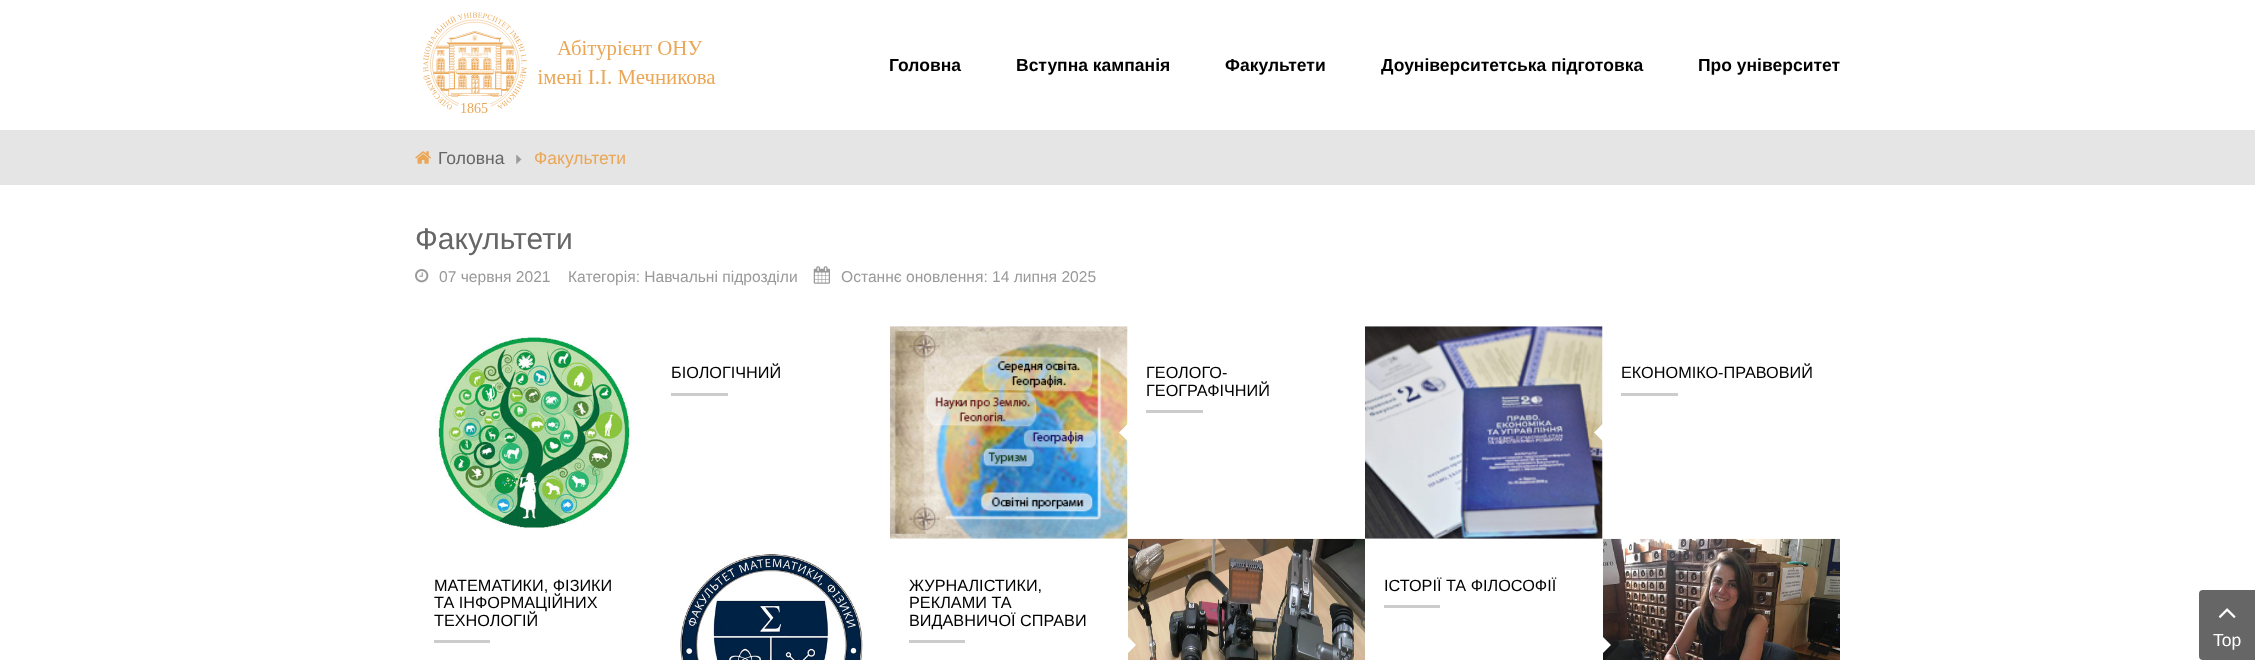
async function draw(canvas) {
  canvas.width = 2255
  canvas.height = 660
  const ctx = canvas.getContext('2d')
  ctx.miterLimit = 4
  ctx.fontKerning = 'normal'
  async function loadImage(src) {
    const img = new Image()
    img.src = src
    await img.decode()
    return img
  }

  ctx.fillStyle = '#fff'
  ctx.fillRect(0, 0, 2255, 660)
  ctx.drawImage(await loadImage('image0.png'), 423, 12, 293, 101)
  ctx.font = 'bold 17.5px Liberation Sans'
  ctx.fillStyle = '#000'
  ctx.fillText('Головна', 889, 71)
  ctx.fillText('Вступна кампанія', 1016, 71)
  ctx.fillText('Факультети', 1225, 71)
  ctx.fillText('Доуніверситетська підготовка', 1381, 71)
  ctx.fillText('Про університет', 1698, 71)
  ctx.fillStyle = '#e5e5e5'
  ctx.fillRect(0, 130, 2255, 55)
  ctx.drawImage(await loadImage('image1.png'), 415, 151, 16, 13)
  ctx.font = '17.5px Liberation Sans'
  ctx.fillStyle = '#666'
  ctx.fillText('Головна', 438, 164)
  ctx.drawImage(await loadImage('image2.png'), 516, 155, 6, 9)
  ctx.fillStyle = '#eaa757'
  ctx.fillText('Факультети', 534, 164)
  ctx.font = '30px Liberation Sans'
  ctx.fillStyle = '#666'
  ctx.fillText('Факультети', 415, 249)
  ctx.drawImage(await loadImage('image3.png'), 415, 269, 14, 14)
  ctx.font = '15.6px Liberation Sans'
  ctx.fillStyle = '#999'
  ctx.fillText('07 червня 2021', 439, 282)
  ctx.fillText('Категорія: Навчальні підрозділи', 568, 282)
  ctx.drawImage(await loadImage('image4.png'), 813, 266, 17, 18)
  ctx.fillText('Останнє оновлення: 14 липня 2025', 841, 282)
  ctx.drawImage(await loadImage('image5.png'), 435, 336, 197, 193)
  ctx.font = '16.25px Liberation Sans'
  ctx.fillStyle = '#000'
  ctx.fillText('БІОЛОГІЧНИЙ', 671, 378)
  ctx.fillStyle = '#ccc'
  ctx.fillRect(671, 393, 57, 3)
  ctx.drawImage(await loadImage('image6.png'), 890, 326, 238, 213)
  ctx.fillStyle = '#000'
  ctx.fillText('ГЕОЛОГО-', 1146, 378)
  ctx.fillText('ГЕОГРАФІЧНИЙ', 1146, 396)
  ctx.fillStyle = '#ccc'
  ctx.fillRect(1146, 410, 57, 3)
  ctx.fillStyle = '#fff'
  ctx.beginPath()
  ctx.moveTo(1129, 422.5)
  ctx.lineTo(1129, 442.5)
  ctx.lineTo(1119, 432.5)
  ctx.closePath()
  ctx.fill()
  ctx.drawImage(await loadImage('image7.png'), 1365, 326, 238, 213)
  ctx.fillStyle = '#000'
  ctx.fillText('ЕКОНОМІКО-ПРАВОВИЙ', 1621, 378)
  ctx.fillStyle = '#ccc'
  ctx.fillRect(1621, 393, 57, 3)
  ctx.fillStyle = '#fff'
  ctx.beginPath()
  ctx.moveTo(1604, 422.5)
  ctx.lineTo(1604, 442.5)
  ctx.lineTo(1594, 432.5)
  ctx.closePath()
  ctx.fill()
  ctx.fillStyle = '#000'
  ctx.fillText('МАТЕМАТИКИ, ФІЗИКИ', 434, 591)
  ctx.fillText('ТА ІНФОРМАЦІЙНИХ', 434, 608)
  ctx.fillText('ТЕХНОЛОГІЙ', 434, 626)
  ctx.fillStyle = '#ccc'
  ctx.fillRect(434, 640, 56, 3)
  ctx.drawImage(await loadImage('image8.png'), 680, 554, 183, 106)
  ctx.fillStyle = '#000'
  ctx.fillText('ЖУРНАЛІСТИКИ,', 909, 591)
  ctx.fillText('РЕКЛАМИ ТА', 909, 608)
  ctx.fillText('ВИДАВНИЧОЇ СПРАВИ', 909, 626)
  ctx.fillStyle = '#ccc'
  ctx.fillRect(909, 640, 56, 3)
  ctx.drawImage(await loadImage('image9.png'), 1128, 538, 237, 122)
  ctx.fillStyle = '#fff'
  ctx.beginPath()
  ctx.moveTo(1126, 655)
  ctx.lineTo(1126, 635)
  ctx.lineTo(1136, 645)
  ctx.closePath()
  ctx.fill()
  ctx.fillStyle = '#000'
  ctx.fillText('ІСТОРІЇ ТА ФІЛОСОФІЇ', 1384, 591)
  ctx.fillStyle = '#ccc'
  ctx.fillRect(1384, 605, 56, 3)
  ctx.drawImage(await loadImage('image10.png'), 1603, 538, 237, 122)
  ctx.fillStyle = '#fff'
  ctx.beginPath()
  ctx.moveTo(1601, 655)
  ctx.lineTo(1601, 635)
  ctx.lineTo(1611, 645)
  ctx.closePath()
  ctx.fill()
  ctx.fillStyle = '#666'
  ctx.beginPath()
  ctx.roundRect(2199, 590, 56, 70, [4, 0, 0, 4])
  ctx.fill()
  ctx.drawImage(await loadImage('image11.png'), 2218, 608, 18, 10)
  ctx.font = '17.5px Liberation Sans'
  ctx.fillStyle = '#fff'
  ctx.fillText('Top', 2213, 646)
}

draw(document.querySelector('canvas'))
